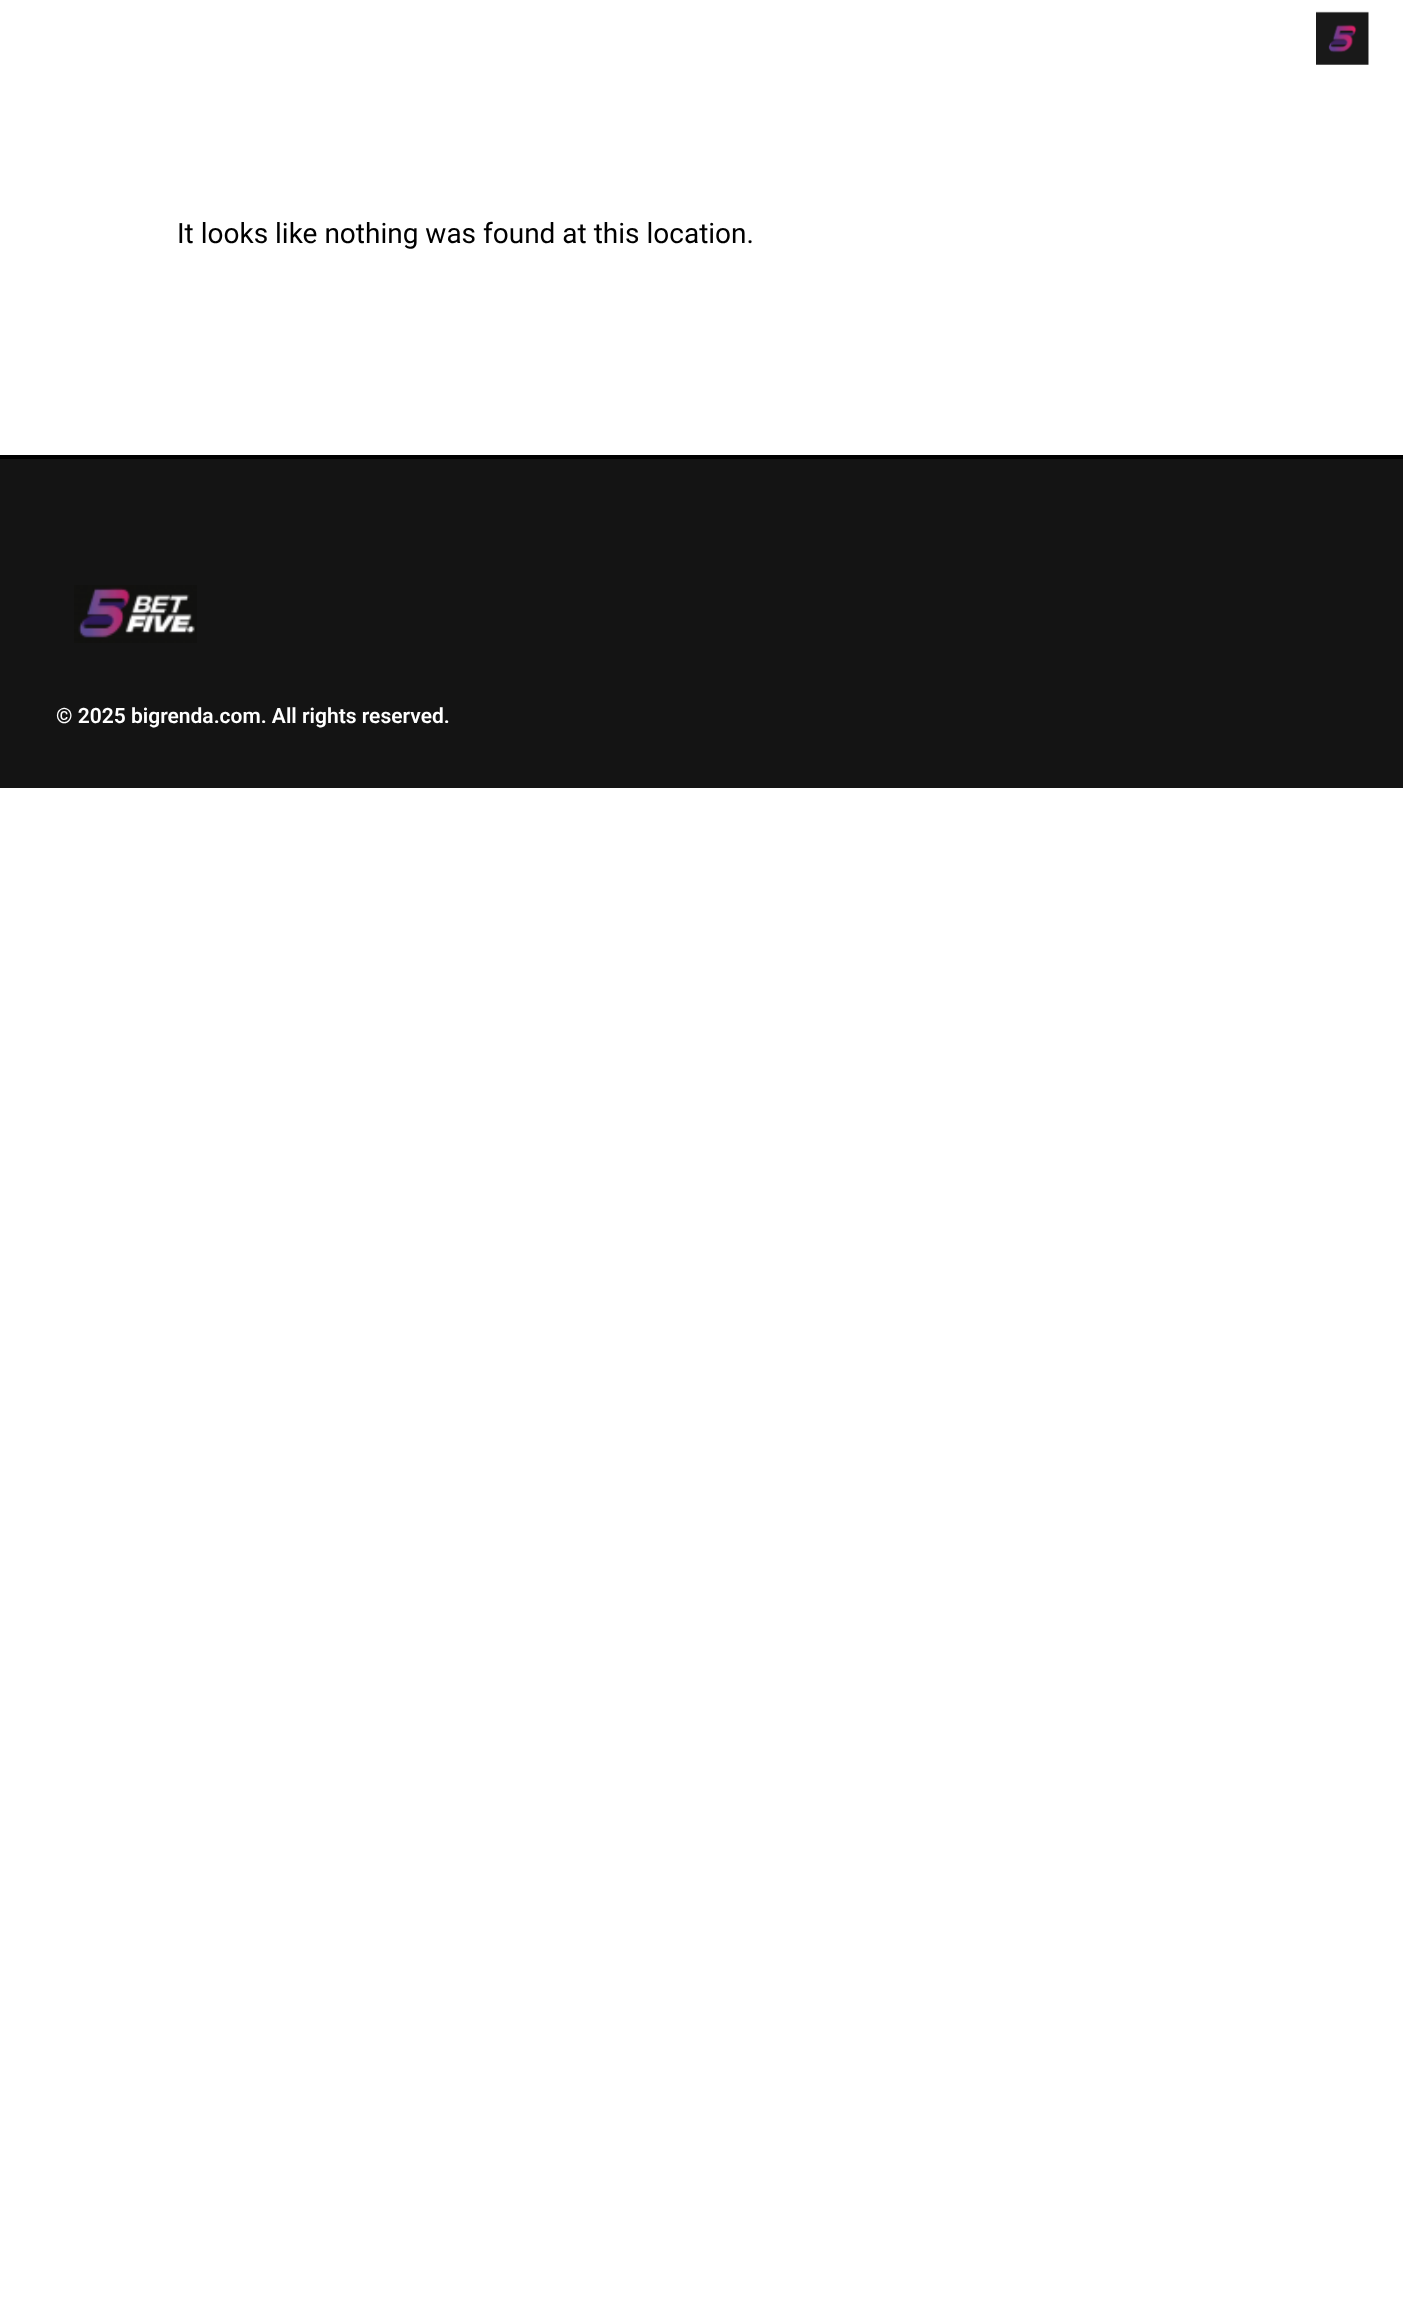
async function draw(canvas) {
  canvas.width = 1403
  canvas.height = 2320
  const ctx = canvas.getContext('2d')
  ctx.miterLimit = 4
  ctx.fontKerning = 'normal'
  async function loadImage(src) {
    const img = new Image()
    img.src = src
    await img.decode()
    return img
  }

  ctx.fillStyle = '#fff'
  ctx.fillRect(0, 0, 1403, 2320)
  ctx.drawImage(await loadImage('image0.png'), 1316, 11, 53, 54)
  ctx.font = '28px Roboto'
  ctx.fillStyle = '#000'
  ctx.fillText('It looks like nothing was found at this location.', 177, 243)
  ctx.fillStyle = '#141414'
  ctx.fillRect(0, 459, 1403, 329)
  ctx.fillStyle = '#000'
  ctx.fillRect(0, 455, 1403, 4)
  ctx.drawImage(await loadImage('image1.png'), 74, 585, 123, 58)
  ctx.font = '600 21px Roboto'
  ctx.fillStyle = '#fff'
  ctx.fillText('© 2025 bigrenda.com. All rights reserved.', 56, 723)
}

draw(document.querySelector('canvas'))
